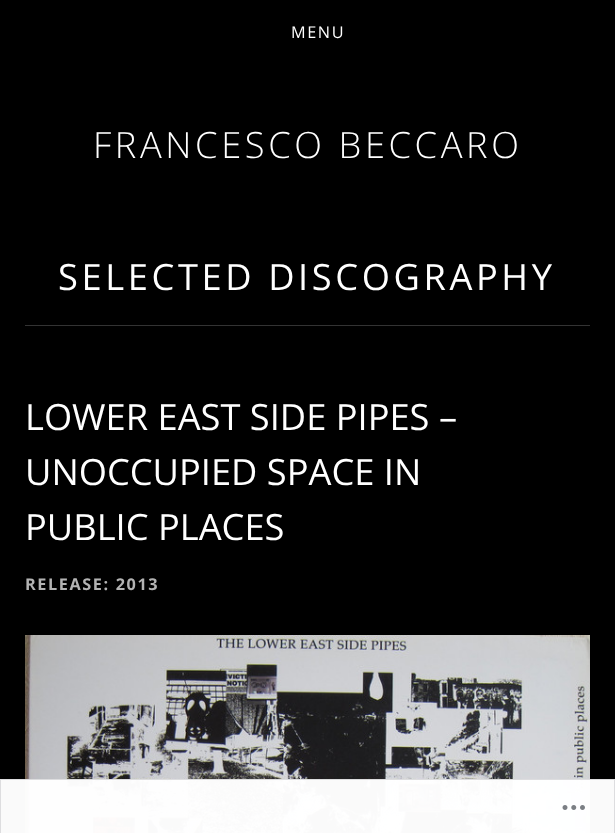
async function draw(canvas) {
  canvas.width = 615
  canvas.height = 833
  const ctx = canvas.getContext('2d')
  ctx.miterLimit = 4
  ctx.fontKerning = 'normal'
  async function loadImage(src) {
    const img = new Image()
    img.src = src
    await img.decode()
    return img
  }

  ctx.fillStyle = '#000'
  ctx.fillRect(0, 0, 615, 833)
  ctx.letterSpacing = '1.6px'
  ctx.font = '16.25px Open Sans'
  ctx.fillStyle = '#fff'
  ctx.fillText('MENU', 291, 38)
  ctx.letterSpacing = '3.6px'
  ctx.font = '300 36.25px Open Sans'
  ctx.fillText('FRANCESCO BECCARO', 93, 158)
  ctx.fillStyle = '#333'
  ctx.fillRect(25, 325, 565, 1)
  ctx.font = '36.25px Open Sans'
  ctx.fillStyle = '#fff'
  ctx.fillText('SELECTED DISCOGRAPHY', 58, 290)
  ctx.letterSpacing = '0px'
  ctx.fillText('LOWER EAST SIDE PIPES –', 25, 430)
  ctx.fillText('UNOCCUPIED SPACE IN', 25, 485)
  ctx.fillText('PUBLIC PLACES', 25, 540)
  ctx.letterSpacing = '1.6px'
  ctx.font = 'bold 16.25px Open Sans'
  ctx.fillStyle = '#b3b3b3'
  ctx.fillText('RELEASE: 2013', 25, 590)
  ctx.drawImage(await loadImage('image0.png'), 25, 635, 565, 198)
  ctx.fillStyle = '#fffffffa'
  ctx.fillRect(0, 779, 615, 54)
  ctx.strokeStyle = '#dcdcdefa'
  ctx.strokeRect(0.5, 779.5, 614, 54)
  ctx.drawImage(await loadImage('image1.png'), 562, 805, 23, 5)
}

draw(document.querySelector('canvas'))
